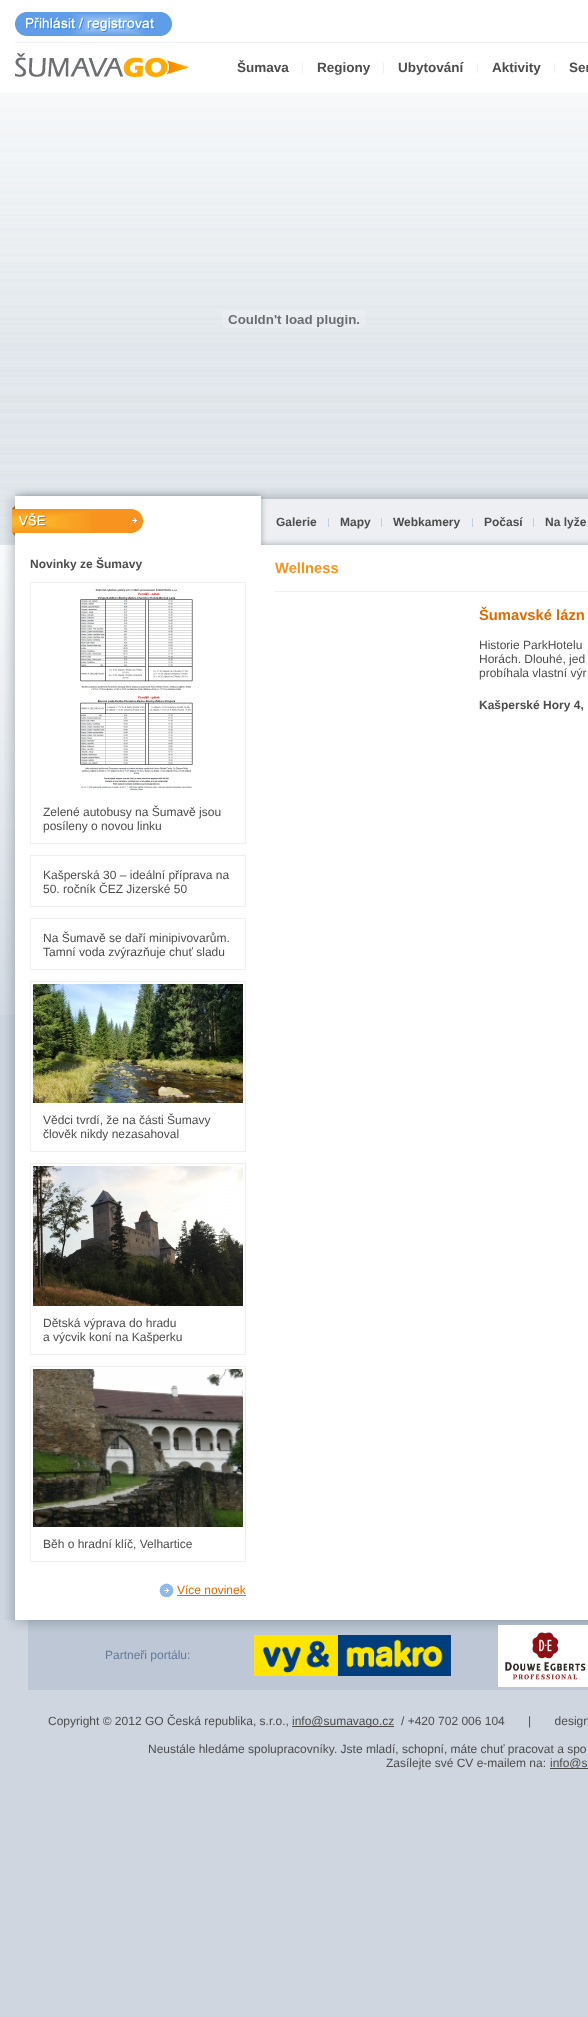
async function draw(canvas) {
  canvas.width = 588
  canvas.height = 2017
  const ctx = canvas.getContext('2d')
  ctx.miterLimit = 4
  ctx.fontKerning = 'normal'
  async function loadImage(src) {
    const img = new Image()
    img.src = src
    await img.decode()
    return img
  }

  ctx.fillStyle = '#cfd6e0'
  ctx.fillRect(0, 0, 588, 2017)
  ctx.drawImage(await loadImage('image0.png'), 0, 0, 588, 1015)
  ctx.fillStyle = '#edeff3'
  ctx.fillRect(15, 42, 573, 1)
  ctx.drawImage(await loadImage('image1.png'), 15, 12, 157, 24)
  ctx.drawImage(await loadImage('image2.png'), 15, 53, 174, 24)
  ctx.font = 'bold 13.5px Liberation Sans'
  ctx.fillStyle = '#4d4d4d'
  ctx.fillText('Šumava', 237, 72)
  ctx.fillStyle = '#edeff3'
  ctx.fillRect(302, 63, 1, 10)
  ctx.fillStyle = '#4d4d4d'
  ctx.fillText('Regiony', 317, 72)
  ctx.fillStyle = '#edeff3'
  ctx.fillRect(383, 63, 1, 10)
  ctx.fillStyle = '#4d4d4d'
  ctx.fillText('Ubytování', 398, 72)
  ctx.fillStyle = '#edeff3'
  ctx.fillRect(477, 63, 1, 10)
  ctx.fillStyle = '#4d4d4d'
  ctx.fillText('Aktivity', 492, 72)
  ctx.fillStyle = '#edeff3'
  ctx.fillRect(554, 63, 1, 10)
  ctx.fillStyle = '#4d4d4d'
  ctx.fillText('Ser', 569, 72)
  ctx.drawImage(await loadImage('image3.png'), 4, 488, 584, 57)
  ctx.drawImage(await loadImage('image4.png'), 12, 506, 131, 30)
  ctx.font = 'bold 12px Liberation Sans'
  ctx.fillText('Galerie', 276, 526)
  ctx.fillStyle = '#c8cfd6'
  ctx.fillRect(328, 518, 1, 9)
  ctx.fillStyle = '#4d4d4d'
  ctx.fillText('Mapy', 340, 526)
  ctx.fillStyle = '#c8cfd6'
  ctx.fillRect(381, 518, 1, 9)
  ctx.fillStyle = '#4d4d4d'
  ctx.fillText('Webkamery', 393, 526)
  ctx.fillStyle = '#c8cfd6'
  ctx.fillRect(472, 518, 1, 9)
  ctx.fillStyle = '#4d4d4d'
  ctx.fillText('Počasí', 484, 526)
  ctx.fillStyle = '#c8cfd6'
  ctx.fillRect(533, 518, 1, 9)
  ctx.fillStyle = '#4d4d4d'
  ctx.fillText('Na lyže', 545, 526)
  ctx.drawImage(await loadImage('image5.png'), 4, 545, 584, 1075)
  ctx.fillText('Novinky ze Šumavy', 30, 568)
  ctx.strokeStyle = '#edeff3'
  ctx.strokeRect(30.5, 582.5, 215, 261)
  ctx.drawImage(await loadImage('image6.png'), 80, 588, 113, 202)
  ctx.font = '12px Liberation Sans'
  ctx.fillText('Zelené autobusy na Šumavě jsou', 43, 816)
  ctx.fillText('posíleny o novou linku', 43, 830)
  ctx.strokeRect(30.5, 855.5, 215, 51)
  ctx.fillText('Kašperská 30 – ideální příprava na', 43, 879)
  ctx.fillText('50. ročník ČEZ Jizerské 50', 43, 893)
  ctx.strokeRect(30.5, 918.5, 215, 51)
  ctx.fillText('Na Šumavě se daří minipivovarům.', 43, 942)
  ctx.fillText('Tamní voda zvýrazňuje chuť sladu', 43, 956)
  ctx.strokeRect(30.5, 981.5, 215, 170)
  ctx.drawImage(await loadImage('image7.png'), 33, 984, 210, 119)
  ctx.fillText('Vědci tvrdí, že na části Šumavy', 43, 1124)
  ctx.fillText('člověk nikdy nezasahoval', 43, 1138)
  ctx.strokeRect(30.5, 1163.5, 215, 191)
  ctx.drawImage(await loadImage('image8.png'), 33, 1166, 210, 140)
  ctx.fillText('Dětská výprava do hradu', 43, 1327)
  ctx.fillText('a výcvik koní na Kašperku', 43, 1341)
  ctx.strokeRect(30.5, 1366.5, 215, 195)
  ctx.drawImage(await loadImage('image9.png'), 33, 1369, 210, 158)
  ctx.fillText('Běh o hradní klíč, Velhartice', 43, 1548)
  ctx.drawImage(await loadImage('image10.png'), 159, 1583, 15, 14)
  ctx.fillStyle = '#df6a00'
  ctx.fillText('Více novinek', 177, 1594)
  ctx.fillRect(177, 1595, 69, 1)
  ctx.font = 'bold 14.75px Liberation Sans'
  ctx.fillStyle = '#f7931e'
  ctx.fillText('Wellness', 275, 573)
  ctx.fillStyle = '#edeff3'
  ctx.fillRect(275, 591, 313, 1)
  ctx.fillStyle = '#df6a00'
  ctx.fillText('Šumavské lázn', 479, 620)
  ctx.font = '12px Liberation Sans'
  ctx.fillStyle = '#4d4d4d'
  ctx.fillText('Historie ParkHotelu', 479, 649)
  ctx.fillText('Horách. Dlouhé, jed', 479, 663)
  ctx.fillText('probíhala vlastní výr', 479, 677)
  ctx.font = 'bold 12px Liberation Sans'
  ctx.fillText('Kašperské Hory 4,', 479, 709)
  ctx.drawImage(await loadImage('image11.png'), 7, 1620, 581, 70)
  ctx.font = '12px Liberation Sans'
  ctx.fillStyle = '#637a9a'
  ctx.fillText('Partneři portálu:', 105, 1659)
  ctx.drawImage(await loadImage('image12.png'), 254, 1635, 197, 41)
  ctx.drawImage(await loadImage('image13.png'), 498, 1625, 90, 62)
  ctx.fillStyle = '#4d4d4d'
  ctx.fillText('Copyright © 2012 GO Česká republika, s.r.o.,', 48, 1725)
  ctx.fillRect(292, 1726, 102, 1)
  ctx.fillText('info@sumavago.cz', 292, 1725)
  ctx.fillText('/ +420 702 006 104       |       design', 401, 1725)
  ctx.fillText('Neustále hledáme spolupracovníky. Jste mladí, schopní, máte chuť pracovat a spo', 148, 1753)
  ctx.fillText('Zasílejte své CV e-mailem na:', 386, 1767)
  ctx.fillRect(550, 1768, 38, 1)
  ctx.fillText('info@s', 550, 1767)
  ctx.drawImage(await loadImage('image14.png'), 222, 310, 144, 18)
}

draw(document.querySelector('canvas'))
